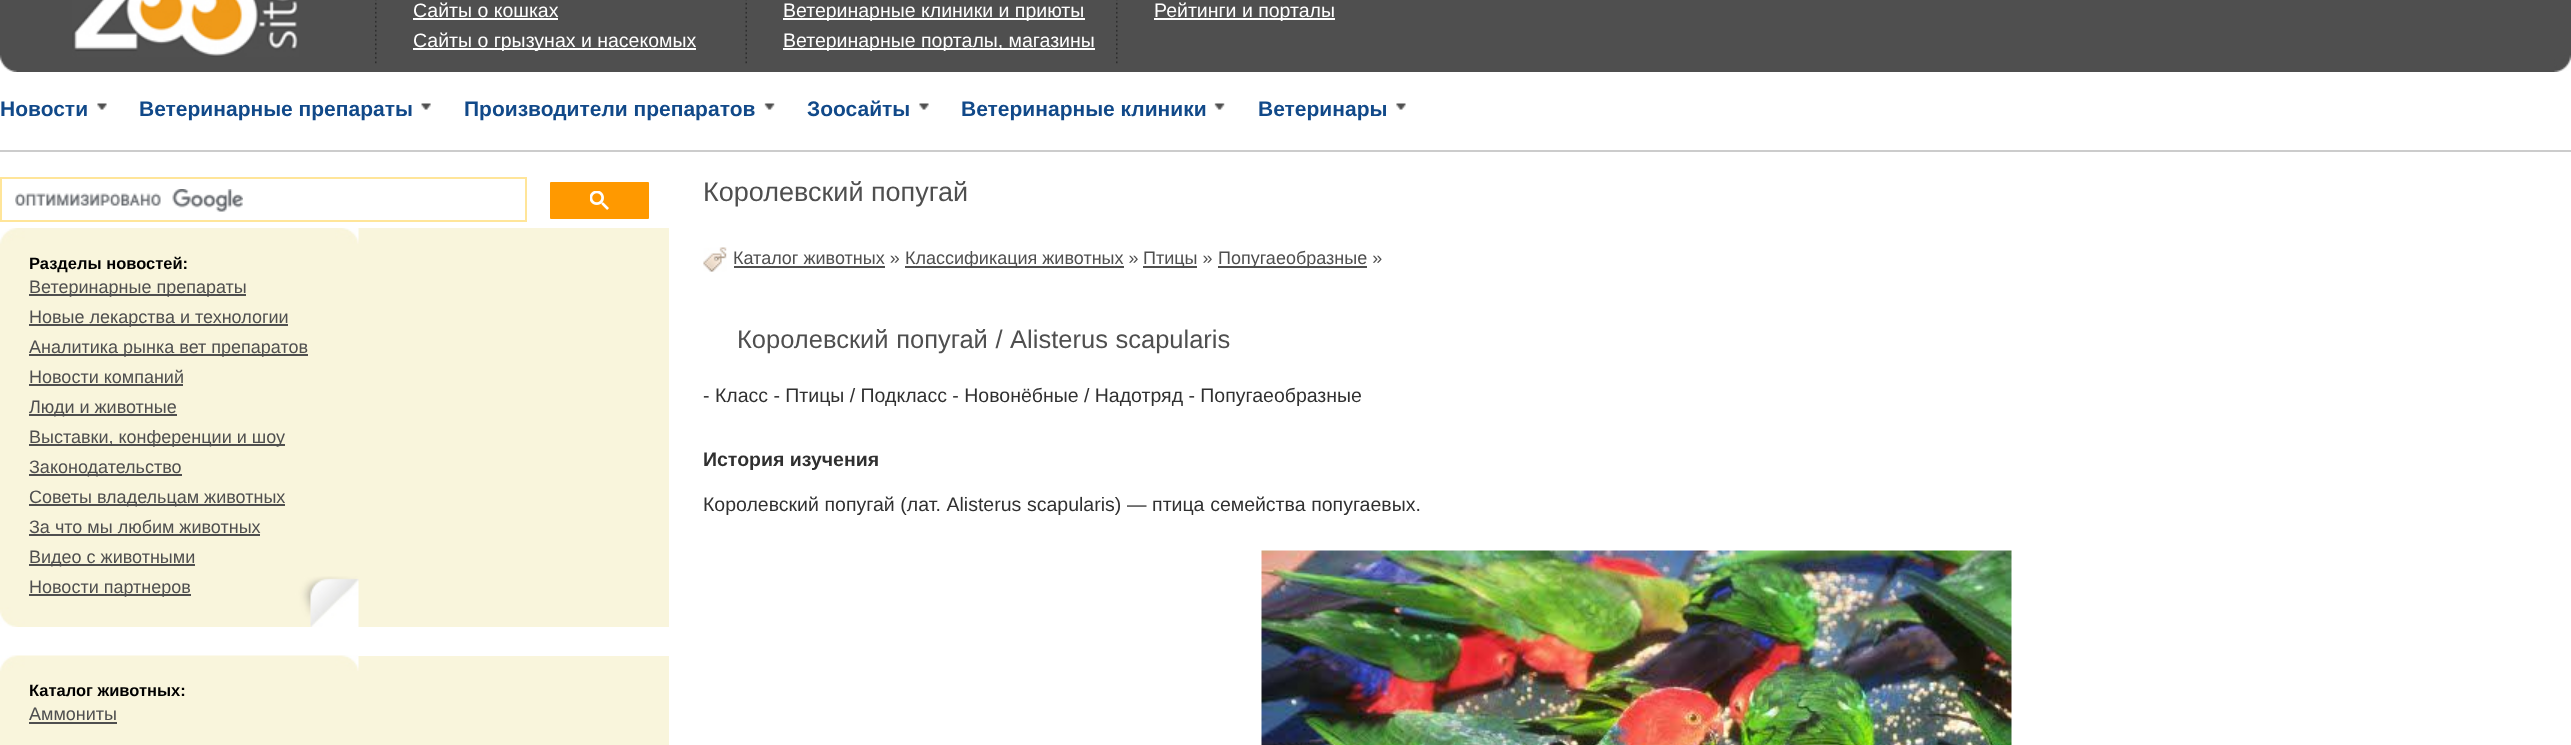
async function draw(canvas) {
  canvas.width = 2571
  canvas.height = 745
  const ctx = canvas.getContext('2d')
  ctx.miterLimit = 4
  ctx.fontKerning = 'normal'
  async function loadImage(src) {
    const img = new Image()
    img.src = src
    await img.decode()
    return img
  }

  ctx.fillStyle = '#fff'
  ctx.fillRect(0, 0, 2571, 745)
  ctx.fillStyle = '#4f4f4f'
  ctx.fillRect(0, 0, 2571, 72)
  ctx.drawImage(await loadImage('image0.png'), 0, 55, 17, 17)
  ctx.drawImage(await loadImage('image1.png'), 2554, 55, 17, 17)
  ctx.drawImage(await loadImage('image2.png'), 72, 0, 227, 57)
  ctx.drawImage(await loadImage('image3.png'), 375, 0, 2, 64)
  ctx.font = '19.5px Liberation Sans'
  ctx.fillStyle = '#fff'
  ctx.fillText('Сайты о кошках', 413, 17)
  ctx.fillRect(413, 18, 145, 2)
  ctx.fillRect(413, 48, 283, 2)
  ctx.fillText('Сайты о грызунах и насекомых', 413, 47)
  ctx.drawImage(await loadImage('image4.png'), 745, 0, 2, 64)
  ctx.fillRect(783, 18, 302, 2)
  ctx.fillText('Ветеринарные клиники и приюты', 783, 17)
  ctx.fillRect(783, 48, 312, 2)
  ctx.fillText('Ветеринарные порталы, магазины', 783, 47)
  ctx.drawImage(await loadImage('image3.png'), 1116, 0, 2, 64)
  ctx.fillRect(1154, 18, 181, 2)
  ctx.fillText('Рейтинги и порталы', 1154, 17)
  ctx.fillStyle = '#ccc'
  ctx.fillRect(0, 150, 2571, 2)
  ctx.drawImage(await loadImage('image5.png'), 97, 103, 10, 7)
  ctx.font = 'bold 21px Liberation Sans'
  ctx.fillStyle = '#114989'
  ctx.fillText('Новости', 0, 116)
  ctx.drawImage(await loadImage('image6.png'), 421, 103, 10, 7)
  ctx.fillText('Ветеринарные препараты', 139, 116)
  ctx.drawImage(await loadImage('image7.png'), 764, 103, 11, 7)
  ctx.fillText('Производители препаратов', 464, 116)
  ctx.drawImage(await loadImage('image5.png'), 919, 103, 10, 7)
  ctx.fillText('Зоосайты', 807, 116)
  ctx.drawImage(await loadImage('image7.png'), 1214, 103, 11, 7)
  ctx.fillText('Ветеринарные клиники', 961, 116)
  ctx.drawImage(await loadImage('image5.png'), 1396, 103, 10, 7)
  ctx.fillText('Ветеринары', 1258, 116)
  ctx.strokeStyle = '#ffe599'
  ctx.lineWidth = 2
  ctx.strokeRect(1, 178, 525, 43)
  ctx.drawImage(await loadImage('image8.png'), 15, 189, 228, 23)
  ctx.fillStyle = '#f90'
  ctx.beginPath()
  ctx.roundRect(549, 181, 101, 39, 2)
  ctx.fill()
  ctx.strokeStyle = '#fff'
  ctx.stroke()
  ctx.drawImage(await loadImage('image9.png'), 590, 191, 19, 19)
  ctx.fillStyle = '#f9f5dc'
  ctx.fillRect(0, 228, 669, 399)
  ctx.drawImage(await loadImage('image10.png'), 0, 228, 359, 16)
  ctx.drawImage(await loadImage('image11.png'), 0, 576, 359, 51)
  ctx.font = 'bold 16.5px Liberation Sans'
  ctx.fillStyle = '#000'
  ctx.fillText('Разделы новостей:', 29, 269)
  ctx.fillStyle = '#4f4f4f'
  ctx.fillRect(29, 294, 217, 2)
  ctx.font = '18px Liberation Sans'
  ctx.fillText('Ветеринарные препараты', 29, 293)
  ctx.fillRect(29, 324, 259, 2)
  ctx.fillText('Новые лекарства и технологии', 29, 323)
  ctx.fillRect(29, 354, 279, 2)
  ctx.fillText('Аналитика рынка вет препаратов', 29, 353)
  ctx.fillText('Новости компаний', 29, 383)
  ctx.fillRect(29, 384, 154, 2)
  ctx.fillRect(29, 414, 148, 2)
  ctx.fillText('Люди и животные', 29, 413)
  ctx.fillRect(29, 444, 256, 2)
  ctx.fillText('Выставки, конференции и шоу', 29, 443)
  ctx.fillRect(29, 474, 153, 2)
  ctx.fillText('Законодательство', 29, 473)
  ctx.fillRect(29, 504, 256, 2)
  ctx.fillText('Советы владельцам животных', 29, 503)
  ctx.fillText('За что мы любим животных', 29, 533)
  ctx.fillRect(29, 534, 231, 2)
  ctx.fillRect(29, 564, 166, 2)
  ctx.fillText('Видео с животными', 29, 563)
  ctx.fillRect(29, 594, 162, 2)
  ctx.fillText('Новости партнеров', 29, 593)
  ctx.fillStyle = '#f9f5dc'
  ctx.fillRect(0, 656, 669, 89)
  ctx.drawImage(await loadImage('image12.png'), 0, 655, 359, 16)
  ctx.font = 'bold 16.5px Liberation Sans'
  ctx.fillStyle = '#000'
  ctx.fillText('Каталог животных:', 29, 696)
  ctx.font = '18px Liberation Sans'
  ctx.fillStyle = '#4f4f4f'
  ctx.fillText('Аммониты', 29, 720)
  ctx.fillRect(29, 722, 88, 2)
  ctx.font = '27px Liberation Sans'
  ctx.fillText('Королевский попугай', 703, 201)
  ctx.drawImage(await loadImage('image13.png'), 703, 247, 24, 25)
  ctx.font = '18px Liberation Sans'
  ctx.fillText('Каталог животных »', 733, 264)
  ctx.fillRect(734, 266, 151, 2)
  ctx.fillRect(905, 266, 219, 2)
  ctx.fillText('Классификация животных »', 905, 264)
  ctx.fillRect(1143, 266, 54, 2)
  ctx.fillText('Птицы »', 1143, 264)
  ctx.fillRect(1218, 266, 149, 2)
  ctx.fillText('Попугаеобразные »', 1218, 264)
  ctx.wordSpacing = '0.5px'
  ctx.font = '25.5px Liberation Sans'
  ctx.fillText('Королевский попугай / Alisterus scapularis', 737, 348)
  ctx.wordSpacing = '0px'
  ctx.font = '19.5px Liberation Sans'
  ctx.fillStyle = '#303030'
  ctx.fillText('- Класс - Птицы / Подкласс - Новонёбные / Надотряд - Попугаеобразные', 703, 402)
  ctx.font = 'bold 19.5px Liberation Sans'
  ctx.fillText('История изучения', 703, 466)
  ctx.wordSpacing = '0.25px'
  ctx.font = '19.5px Liberation Sans'
  ctx.fillText('Королевский попугай (лат. Alisterus scapularis) — птица семейства попугаевых.', 703, 511)
  ctx.drawImage(await loadImage('image14.png'), 1261, 550, 751, 195)
}

draw(document.querySelector('canvas'))
